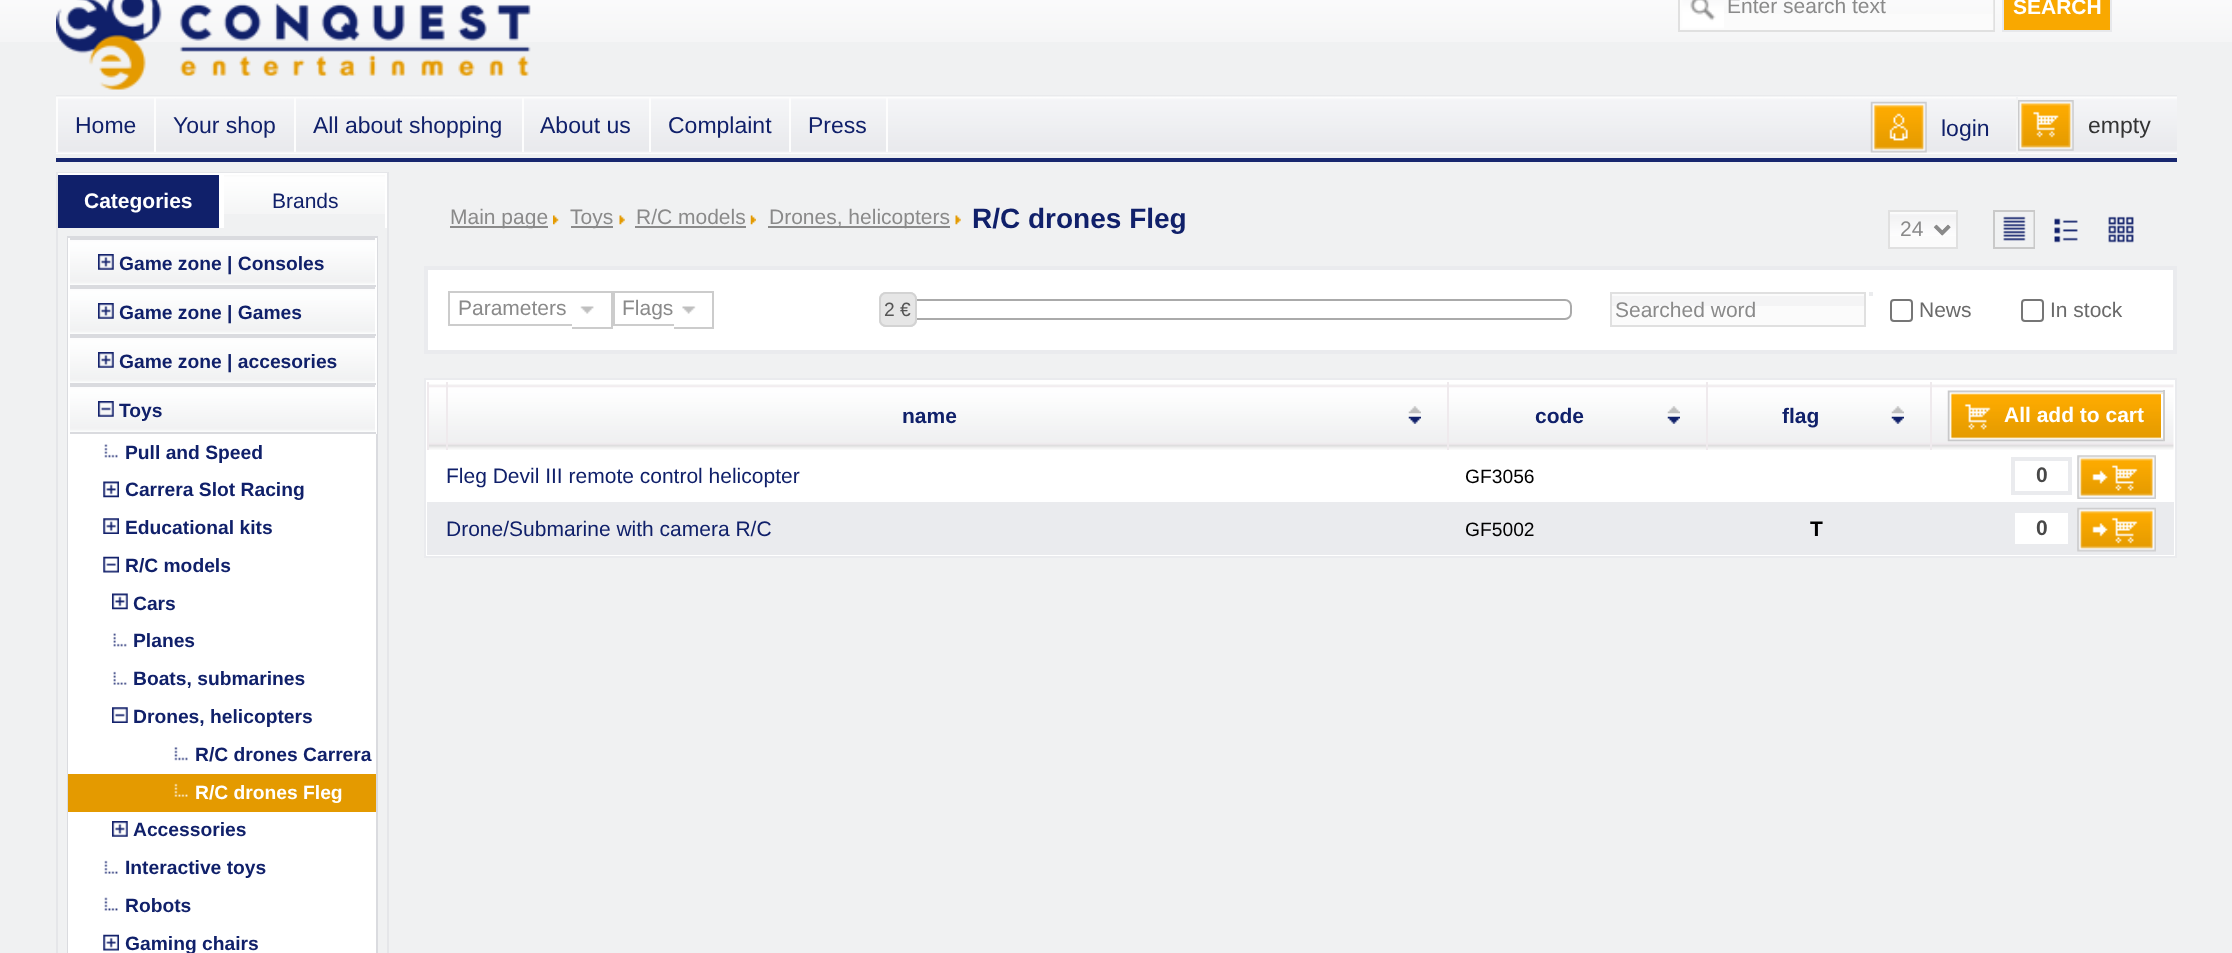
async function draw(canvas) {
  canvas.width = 2232
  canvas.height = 953
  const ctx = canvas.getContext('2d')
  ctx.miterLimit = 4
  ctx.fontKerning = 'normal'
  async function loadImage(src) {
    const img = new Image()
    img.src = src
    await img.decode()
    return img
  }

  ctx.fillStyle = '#f0f1f2'
  ctx.fillRect(0, 0, 2232, 953)
  ctx.drawImage(await loadImage('image0.png'), 0, 0, 2232, 42)
  ctx.fillStyle = '#e9eaec'
  ctx.fillRect(56, 95, 2121, 2)
  ctx.drawImage(await loadImage('image1.png'), 56, 0, 475, 90)
  ctx.drawImage(await loadImage('image2.png'), 1680, 0, 44, 30)
  ctx.strokeStyle = '#e0e0e0'
  ctx.lineWidth = 2
  ctx.strokeRect(1679, -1, 315, 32)
  ctx.fillStyle = '#fbfbfb'
  ctx.fillRect(1724, 14, 269, 16)
  ctx.drawImage(await loadImage('image3.png'), 1993, 0, 1, 30)
  ctx.font = '21px Liberation Sans'
  ctx.fillStyle = '#8a8a8a'
  ctx.fillText('Enter search text', 1727, 13)
  ctx.fillStyle = '#f9a800'
  ctx.beginPath()
  ctx.rect(2003, -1, 108, 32)
  ctx.fill()
  ctx.strokeStyle = '#e7e8eb'
  ctx.stroke()
  ctx.font = 'bold 21px Liberation Sans'
  ctx.fillStyle = '#fff'
  ctx.fillText('SEARCH', 2013, 14)
  ctx.drawImage(await loadImage('image4.png'), 56, 96, 2121, 58)
  ctx.fillStyle = '#18276f'
  ctx.fillRect(56, 158, 2121, 4)
  ctx.fillStyle = '#fdfdfd'
  ctx.fillRect(154, 98, 2, 54)
  ctx.fillRect(56, 98, 2, 54)
  ctx.font = '23px Liberation Sans'
  ctx.fillStyle = '#10206a'
  ctx.fillText('Home', 75, 133)
  ctx.fillStyle = '#fdfdfd'
  ctx.fillRect(294, 98, 2, 54)
  ctx.fillStyle = '#10206a'
  ctx.fillText('Your shop', 173, 133)
  ctx.fillStyle = '#fdfdfd'
  ctx.fillRect(522, 98, 2, 54)
  ctx.fillStyle = '#10206a'
  ctx.fillText('All about shopping', 313, 133)
  ctx.fillStyle = '#fdfdfd'
  ctx.fillRect(649, 98, 2, 54)
  ctx.fillStyle = '#10206a'
  ctx.fillText('About us', 540, 133)
  ctx.fillStyle = '#fdfdfd'
  ctx.fillRect(789, 98, 2, 54)
  ctx.fillStyle = '#10206a'
  ctx.fillText('Complaint', 668, 133)
  ctx.fillStyle = '#fdfdfd'
  ctx.fillRect(886, 98, 2, 54)
  ctx.fillStyle = '#10206a'
  ctx.fillText('Press', 808, 133)
  ctx.drawImage(await loadImage('image5.png'), 1870, 101, 57, 52)
  ctx.fillStyle = '#f3f4f5'
  ctx.fillRect(2016, 96, 2, 60)
  ctx.fillStyle = '#10206a'
  ctx.fillText('login', 1941, 136)
  ctx.drawImage(await loadImage('image6.png'), 2018, 100, 56, 51)
  ctx.fillStyle = '#333'
  ctx.fillText('empty', 2088, 133)
  ctx.strokeStyle = '#e5e6e9'
  ctx.strokeRect(57, 173, 331, 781)
  ctx.fillStyle = '#fff'
  ctx.fillRect(58, 173, 329, 55)
  ctx.fillStyle = '#10206a'
  ctx.fillRect(58, 175, 161, 53)
  ctx.font = 'bold 21px Liberation Sans'
  ctx.fillStyle = '#fff'
  ctx.fillText('Categories', 84, 208)
  ctx.fillStyle = '#f0f1f2'
  ctx.fillRect(224, 175, 161, 53)
  ctx.drawImage(await loadImage('image7.png'), 224, 175, 161, 39)
  ctx.font = '21px Liberation Sans'
  ctx.fillStyle = '#10206a'
  ctx.fillText('Brands', 272, 208)
  ctx.strokeStyle = '#dadbdf'
  ctx.strokeRect(68, 237, 309, 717)
  ctx.drawImage(await loadImage('image8.png'), 70, 240, 305, 45)
  ctx.fillStyle = '#dadbdf'
  ctx.fillRect(68, 238, 308, 2)
  ctx.fillStyle = '#fff'
  ctx.fillRect(375, 238, 2, 49)
  ctx.fillStyle = '#dadbdf'
  ctx.fillRect(68, 285, 308, 4)
  ctx.fillStyle = '#fff'
  ctx.fillRect(68, 238, 2, 49)
  ctx.drawImage(await loadImage('image9.png'), 98, 254, 16, 16)
  ctx.font = 'bold 19.25px Liberation Sans'
  ctx.fillStyle = '#10206a'
  ctx.fillText('Game zone | Consoles', 119, 270)
  ctx.drawImage(await loadImage('image8.png'), 70, 289, 305, 45)
  ctx.fillStyle = '#fff'
  ctx.fillRect(375, 287, 2, 49)
  ctx.fillStyle = '#dadbdf'
  ctx.fillRect(68, 334, 308, 4)
  ctx.fillStyle = '#fff'
  ctx.fillRect(68, 287, 2, 49)
  ctx.drawImage(await loadImage('image9.png'), 98, 303, 16, 16)
  ctx.fillStyle = '#10206a'
  ctx.fillText('Game zone | Games', 119, 319)
  ctx.drawImage(await loadImage('image8.png'), 70, 338, 305, 45)
  ctx.fillStyle = '#fff'
  ctx.fillRect(375, 336, 2, 49)
  ctx.fillStyle = '#dadbdf'
  ctx.fillRect(68, 383, 308, 4)
  ctx.fillStyle = '#fff'
  ctx.fillRect(68, 336, 2, 49)
  ctx.drawImage(await loadImage('image9.png'), 98, 352, 16, 16)
  ctx.fillStyle = '#10206a'
  ctx.fillText('Game zone | accesories', 119, 368)
  ctx.drawImage(await loadImage('image8.png'), 70, 387, 305, 45)
  ctx.fillStyle = '#fff'
  ctx.fillRect(375, 385, 2, 49)
  ctx.fillStyle = '#dadbdf'
  ctx.fillRect(68, 432, 308, 2)
  ctx.fillStyle = '#fff'
  ctx.fillRect(68, 385, 2, 49)
  ctx.drawImage(await loadImage('image10.png'), 98, 401, 16, 16)
  ctx.fillStyle = '#10206a'
  ctx.fillText('Toys', 119, 417)
  ctx.fillStyle = '#fff'
  ctx.fillRect(68, 434, 308, 340)
  ctx.drawImage(await loadImage('image11.png'), 104, 444, 14, 14)
  ctx.fillStyle = '#10206a'
  ctx.fillText('Pull and Speed', 125, 459)
  ctx.drawImage(await loadImage('image12.png'), 103, 481, 16, 17)
  ctx.fillText('Carrera Slot Racing', 125, 496)
  ctx.drawImage(await loadImage('image13.png'), 103, 518, 16, 16)
  ctx.fillText('Educational kits', 125, 534)
  ctx.drawImage(await loadImage('image14.png'), 103, 556, 16, 17)
  ctx.fillText('R/C models', 125, 572)
  ctx.drawImage(await loadImage('image15.png'), 112, 593, 16, 17)
  ctx.fillText('Cars', 133, 610)
  ctx.drawImage(await loadImage('image16.png'), 113, 633, 14, 14)
  ctx.fillText('Planes', 133, 647)
  ctx.drawImage(await loadImage('image17.png'), 113, 671, 14, 14)
  ctx.fillText('Boats, submarines', 133, 685)
  ctx.drawImage(await loadImage('image18.png'), 112, 707, 16, 16)
  ctx.fillText('Drones, helicopters', 133, 723)
  ctx.drawImage(await loadImage('image19.png'), 174, 747, 14, 14)
  ctx.fillText('R/C drones Carrera', 195, 761)
  ctx.fillStyle = '#e49a00'
  ctx.fillRect(68, 774, 308, 38)
  ctx.drawImage(await loadImage('image20.png'), 174, 783, 14, 14)
  ctx.fillStyle = '#fff'
  ctx.fillText('R/C drones Fleg', 195, 799)
  ctx.fillRect(68, 812, 308, 141)
  ctx.drawImage(await loadImage('image21.png'), 112, 821, 16, 16)
  ctx.fillStyle = '#10206a'
  ctx.fillText('Accessories', 133, 836)
  ctx.drawImage(await loadImage('image22.png'), 104, 860, 14, 14)
  ctx.fillText('Interactive toys', 125, 874)
  ctx.drawImage(await loadImage('image23.png'), 104, 897, 14, 14)
  ctx.fillText('Robots', 125, 912)
  ctx.drawImage(await loadImage('image24.png'), 103, 934, 16, 17)
  ctx.fillText('Gaming chairs', 125, 950)
  ctx.fillStyle = '#8a8a8a'
  ctx.fillRect(450, 226, 98, 2)
  ctx.font = '21px Liberation Sans'
  ctx.fillText('Main page', 450, 224)
  ctx.drawImage(await loadImage('image25.png'), 553, 215, 6, 10)
  ctx.fillRect(571, 226, 42, 2)
  ctx.fillText('Toys', 570, 224)
  ctx.drawImage(await loadImage('image26.png'), 619, 215, 6, 10)
  ctx.fillText('R/C models', 636, 224)
  ctx.fillRect(635, 226, 111, 2)
  ctx.drawImage(await loadImage('image27.png'), 750, 215, 6, 10)
  ctx.fillRect(768, 226, 182, 2)
  ctx.fillText('Drones, helicopters', 769, 224)
  ctx.drawImage(await loadImage('image26.png'), 955, 215, 6, 10)
  ctx.font = 'bold 28px Liberation Sans'
  ctx.fillStyle = '#10206a'
  ctx.fillText('R/C drones Fleg', 972, 228)
  ctx.fillStyle = '#fbfbfb'
  ctx.fillRect(1890, 212, 66, 35)
  ctx.drawImage(await loadImage('image28.png'), 1890, 214, 66, 22)
  ctx.strokeStyle = '#e0e0e0'
  ctx.strokeRect(1889, 211, 68, 37)
  ctx.beginPath()
  ctx.moveTo(1935, 226)
  ctx.lineTo(1942, 233)
  ctx.lineTo(1949, 226)
  ctx.strokeStyle = '#8a8a8a'
  ctx.lineWidth = 3.5
  ctx.stroke()
  ctx.font = '21px Liberation Sans'
  ctx.fillStyle = '#8a8a8a'
  ctx.fillText('24', 1900, 236)
  ctx.strokeStyle = '#c9c9c9'
  ctx.lineWidth = 2
  ctx.strokeRect(1994, 211, 40, 37)
  ctx.drawImage(await loadImage('image29.png'), 2003, 212, 31, 35)
  ctx.drawImage(await loadImage('image30.png'), 2054, 218, 24, 25)
  ctx.drawImage(await loadImage('image31.png'), 2108, 216, 26, 27)
  ctx.fillStyle = '#fff'
  ctx.beginPath()
  ctx.rect(426, 268, 1749, 84)
  ctx.fill()
  ctx.strokeStyle = '#eaebee'
  ctx.lineWidth = 4
  ctx.stroke()
  ctx.fillStyle = '#ccc'
  ctx.fillRect(448, 291, 266, 2)
  ctx.fillRect(448, 324, 124, 2)
  ctx.fillRect(448, 291, 2, 35)
  ctx.fillRect(611, 291, 2, 38)
  ctx.fillRect(572, 327, 41, 2)
  ctx.fillStyle = '#8a8a8a'
  ctx.fillText('Parameters', 458, 315)
  ctx.drawImage(await loadImage('image32.png'), 580, 306, 14, 8)
  ctx.fillStyle = '#ccc'
  ctx.fillRect(613, 324, 61, 2)
  ctx.fillRect(613, 291, 2, 35)
  ctx.fillRect(712, 291, 2, 38)
  ctx.fillRect(674, 327, 40, 2)
  ctx.fillStyle = '#8a8a8a'
  ctx.fillText('Flags', 622, 315)
  ctx.drawImage(await loadImage('image33.png'), 682, 306, 14, 8)
  ctx.beginPath()
  ctx.roundRect(890, 300, 681, 19, 6)
  ctx.strokeStyle = '#aaa'
  ctx.lineWidth = 2
  ctx.stroke()
  ctx.beginPath()
  ctx.roundRect(880, 293, 36, 33, 6)
  ctx.strokeStyle = '#d3d3d3'
  ctx.stroke()
  ctx.fillStyle = '#e6e6e6'
  ctx.beginPath()
  ctx.roundRect(880, 293, 36, 33, 6)
  ctx.fill()
  ctx.stroke()
  ctx.font = '19.25px Liberation Sans'
  ctx.fillStyle = '#555'
  ctx.fillText('2 €', 884, 316)
  ctx.fillStyle = '#ebecee'
  ctx.fillRect(1869, 292, 4, 4)
  ctx.fillStyle = '#fbfbfb'
  ctx.fillRect(1612, 294, 252, 31)
  ctx.fillStyle = '#f4f4f5'
  ctx.fillRect(1612, 296, 252, 10)
  ctx.strokeStyle = '#e0e0e0'
  ctx.strokeRect(1611, 293, 254, 33)
  ctx.font = '21px Liberation Sans'
  ctx.fillStyle = '#8a8a8a'
  ctx.fillText('Searched word', 1615, 317)
  ctx.beginPath()
  ctx.roundRect(1891, 300, 21, 21, 3)
  ctx.strokeStyle = '#767676'
  ctx.stroke()
  ctx.fillStyle = '#6a6a6a'
  ctx.fillText('News', 1919, 317)
  ctx.beginPath()
  ctx.roundRect(2022, 300, 21, 21, 3)
  ctx.stroke()
  ctx.fillText('In stock', 2050, 317)
  ctx.fillStyle = '#fff'
  ctx.beginPath()
  ctx.rect(425, 379, 1751, 178)
  ctx.fill()
  ctx.strokeStyle = '#eaebee'
  ctx.stroke()
  ctx.drawImage(await loadImage('image34.png'), 429, 384, 17, 66)
  ctx.fillStyle = '#efeaed'
  ctx.fillRect(427, 382, 2, 68)
  ctx.drawImage(await loadImage('image35.png'), 448, 384, 999, 66)
  ctx.fillRect(446, 382, 2, 68)
  ctx.font = 'bold 21px Liberation Sans'
  ctx.fillStyle = '#10206a'
  ctx.fillText('name', 902, 423)
  ctx.drawImage(await loadImage('image36.png'), 1408, 406, 13, 8)
  ctx.drawImage(await loadImage('image37.png'), 1408, 416, 13, 8)
  ctx.drawImage(await loadImage('image38.png'), 1449, 384, 257, 66)
  ctx.fillStyle = '#efeaed'
  ctx.fillRect(1447, 382, 2, 68)
  ctx.fillStyle = '#10206a'
  ctx.fillText('code', 1535, 423)
  ctx.drawImage(await loadImage('image39.png'), 1667, 406, 13, 8)
  ctx.drawImage(await loadImage('image40.png'), 1667, 416, 13, 8)
  ctx.drawImage(await loadImage('image41.png'), 1708, 384, 222, 66)
  ctx.fillStyle = '#efeaed'
  ctx.fillRect(1706, 382, 2, 68)
  ctx.fillStyle = '#10206a'
  ctx.fillText('flag', 1782, 423)
  ctx.drawImage(await loadImage('image39.png'), 1891, 406, 13, 8)
  ctx.drawImage(await loadImage('image40.png'), 1891, 416, 13, 8)
  ctx.drawImage(await loadImage('image42.png'), 1932, 384, 242, 66)
  ctx.fillStyle = '#efeaed'
  ctx.fillRect(1930, 382, 2, 68)
  ctx.drawImage(await loadImage('image43.png'), 1947, 390, 218, 52)
  ctx.fillStyle = '#ccc'
  ctx.fillRect(2163, 390, 2, 51)
  ctx.fillStyle = '#fff'
  ctx.fillRect(2161, 394, 2, 44)
  ctx.fillText('All add to cart', 2004, 422)
  ctx.font = '21px Liberation Sans'
  ctx.fillStyle = '#10206a'
  ctx.fillText('Fleg Devil III remote control helicopter', 446, 483)
  ctx.font = '19.25px Liberation Sans'
  ctx.fillStyle = '#000'
  ctx.fillText('GF3056', 1465, 483)
  ctx.lineWidth = 4
  ctx.strokeRect(2013, 459, 57, 34)
  ctx.font = 'bold 21px Liberation Sans'
  ctx.fillStyle = '#484848'
  ctx.fillText('0', 2036, 482)
  ctx.drawImage(await loadImage('image44.png'), 2077, 455, 79, 44)
  ctx.fillStyle = '#eaebee'
  ctx.fillRect(427, 502, 1747, 53)
  ctx.font = '21px Liberation Sans'
  ctx.fillStyle = '#10206a'
  ctx.fillText('Drone/Submarine with camera R/C', 446, 536)
  ctx.font = '19.25px Liberation Sans'
  ctx.fillStyle = '#000'
  ctx.fillText('GF5002', 1465, 536)
  ctx.font = 'bold 21px Liberation Sans'
  ctx.fillText('T', 1810, 536)
  ctx.fillStyle = '#fff'
  ctx.fillRect(2015, 513, 53, 31)
  ctx.fillStyle = '#484848'
  ctx.fillText('0', 2036, 535)
  ctx.drawImage(await loadImage('image45.png'), 2077, 507, 79, 45)
}

draw(document.querySelector('canvas'))
